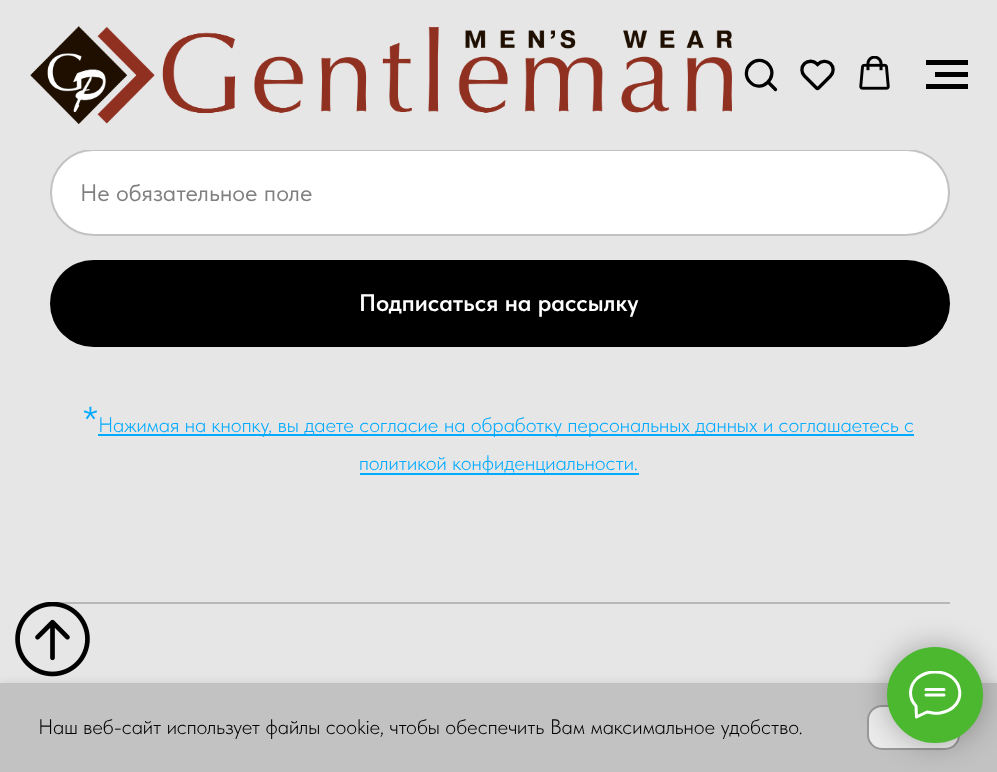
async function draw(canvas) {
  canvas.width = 997
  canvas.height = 772
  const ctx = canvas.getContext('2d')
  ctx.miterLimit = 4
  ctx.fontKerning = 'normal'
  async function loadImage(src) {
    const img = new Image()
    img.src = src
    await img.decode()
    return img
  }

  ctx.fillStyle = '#e6e6e6'
  ctx.fillRect(0, 0, 997, 772)
  ctx.fillStyle = '#fff'
  ctx.beginPath()
  ctx.roundRect(51, 150, 898, 85, 42.5)
  ctx.fill()
  ctx.strokeStyle = '#c2c2c2'
  ctx.lineWidth = 2
  ctx.stroke()
  ctx.font = '24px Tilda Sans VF'
  ctx.fillStyle = '#808080'
  ctx.fillText('Не обязательное поле', 80, 201)
  ctx.fillStyle = '#000'
  ctx.beginPath()
  ctx.roundRect(50, 260, 900, 87, 43.5)
  ctx.fill()
  ctx.font = '600 24px Tilda Sans VF'
  ctx.fillStyle = '#fff'
  ctx.fillText('Подписаться на рассылку', 359, 311)
  ctx.font = '300 36px Tilda Sans VF'
  ctx.fillStyle = '#0af'
  ctx.fillText('*', 83, 432)
  ctx.fillRect(98, 434, 816, 2)
  ctx.font = '300 21px Tilda Sans VF'
  ctx.fillText('Нажимая на кнопку, вы даете согласие на обработку персональных данных и соглашаетесь c', 98, 432)
  ctx.fillRect(360, 473, 279, 2)
  ctx.fillText('политикой конфиденциальности.', 359, 470)
  ctx.fillStyle = '#b8b8b8'
  ctx.fillRect(50, 602, 900, 2)
  ctx.drawImage(await loadImage('image0.png'), 30, 26, 702, 98)
  ctx.beginPath()
  ctx.moveTo(768.5, 64.5)
  ctx.bezierCurveTo(779.5, 77, 761, 94, 750, 82)
  ctx.bezierCurveTo(738.5, 69.5, 757, 52.5, 768.5, 64.5)
  ctx.closePath()
  ctx.strokeStyle = '#000'
  ctx.lineWidth = 3.3
  ctx.stroke()
  ctx.beginPath()
  ctx.moveTo(769.5, 83.5)
  ctx.lineTo(775.5, 89.5)
  ctx.lineCap = 'round'
  ctx.stroke()
  ctx.beginPath()
  ctx.moveTo(830.5, 63.5)
  ctx.bezierCurveTo(834, 67, 834, 72.5, 830.5, 76)
  ctx.lineTo(818.5, 88)
  ctx.bezierCurveTo(818, 88.5, 817, 88.5, 816.5, 88)
  ctx.lineTo(804.5, 76)
  ctx.bezierCurveTo(801, 72.5, 801, 67, 804.5, 63.5)
  ctx.bezierCurveTo(808, 60.5, 813.5, 60.5, 816.5, 63.5)
  ctx.lineTo(817.5, 64.5)
  ctx.bezierCurveTo(821, 61, 826.5, 60, 830.5, 63.5)
  ctx.closePath()
  ctx.stroke()
  ctx.drawImage(await loadImage('image1.png'), 859, 56, 31, 34)
  ctx.fillStyle = '#000'
  ctx.fillRect(926, 60, 42, 5)
  ctx.fillRect(935, 72, 33, 5)
  ctx.fillRect(926, 84, 42, 5)
  ctx.fillStyle = '#e6e6e6'
  ctx.fillRect(85, 149, 830, 1)
  ctx.fillStyle = '#0000001a'
  ctx.filter = 'blur(4px)'
  ctx.beginPath()
  ctx.rect(0, 683, 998, 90)
  ctx.fill()
  ctx.filter = 'none'
  ctx.drawImage(await loadImage('image2.png'), 15, 602, 75, 75)
  ctx.fillStyle = '#c2c2c2'
  ctx.fillRect(0, 683, 997, 89)
  ctx.fillStyle = '#ebebeb'
  ctx.beginPath()
  ctx.roundRect(868, 706, 91, 43, 14)
  ctx.fill()
  ctx.strokeStyle = '#999'
  ctx.lineWidth = 2
  ctx.stroke()
  ctx.fillStyle = '#0000004d'
  ctx.filter = 'blur(15px)'
  ctx.beginPath()
  ctx.roundRect(887, 647, 96, 96, 48)
  ctx.fill()
  ctx.filter = 'none'
  ctx.fillStyle = '#4bb830'
  ctx.beginPath()
  ctx.arc(935, 695, 46.5, 0, 2 * Math.PI)
  ctx.fill()
  ctx.strokeStyle = '#4bb830'
  ctx.lineWidth = 3
  ctx.stroke()
  ctx.save()
  ctx.beginPath()
  ctx.rect(909, 671, 53, 48)
  ctx.clip()
  ctx.beginPath()
  ctx.moveTo(926, 689.5)
  ctx.lineTo(944, 689.5)
  ctx.moveTo(926, 695)
  ctx.lineTo(944, 695)
  ctx.moveTo(916, 706)
  ctx.bezierCurveTo(908, 698, 909, 685.5, 917.5, 678)
  ctx.bezierCurveTo(922.5, 674, 929, 672, 935, 672)
  ctx.bezierCurveTo(964.5, 672, 969.5, 708, 940, 713)
  ctx.bezierCurveTo(935, 714, 932, 712.5, 927, 712)
  ctx.lineTo(916.5, 717)
  ctx.closePath()
  ctx.strokeStyle = '#fff'
  ctx.lineJoin = 'round'
  ctx.stroke()
  ctx.restore()
  ctx.fillStyle = '#000'
  ctx.fillText('Наш веб-сайт использует файлы cookie, чтобы обеспечить Вам максимальное удобство.', 38, 734)
}

draw(document.querySelector('canvas'))
